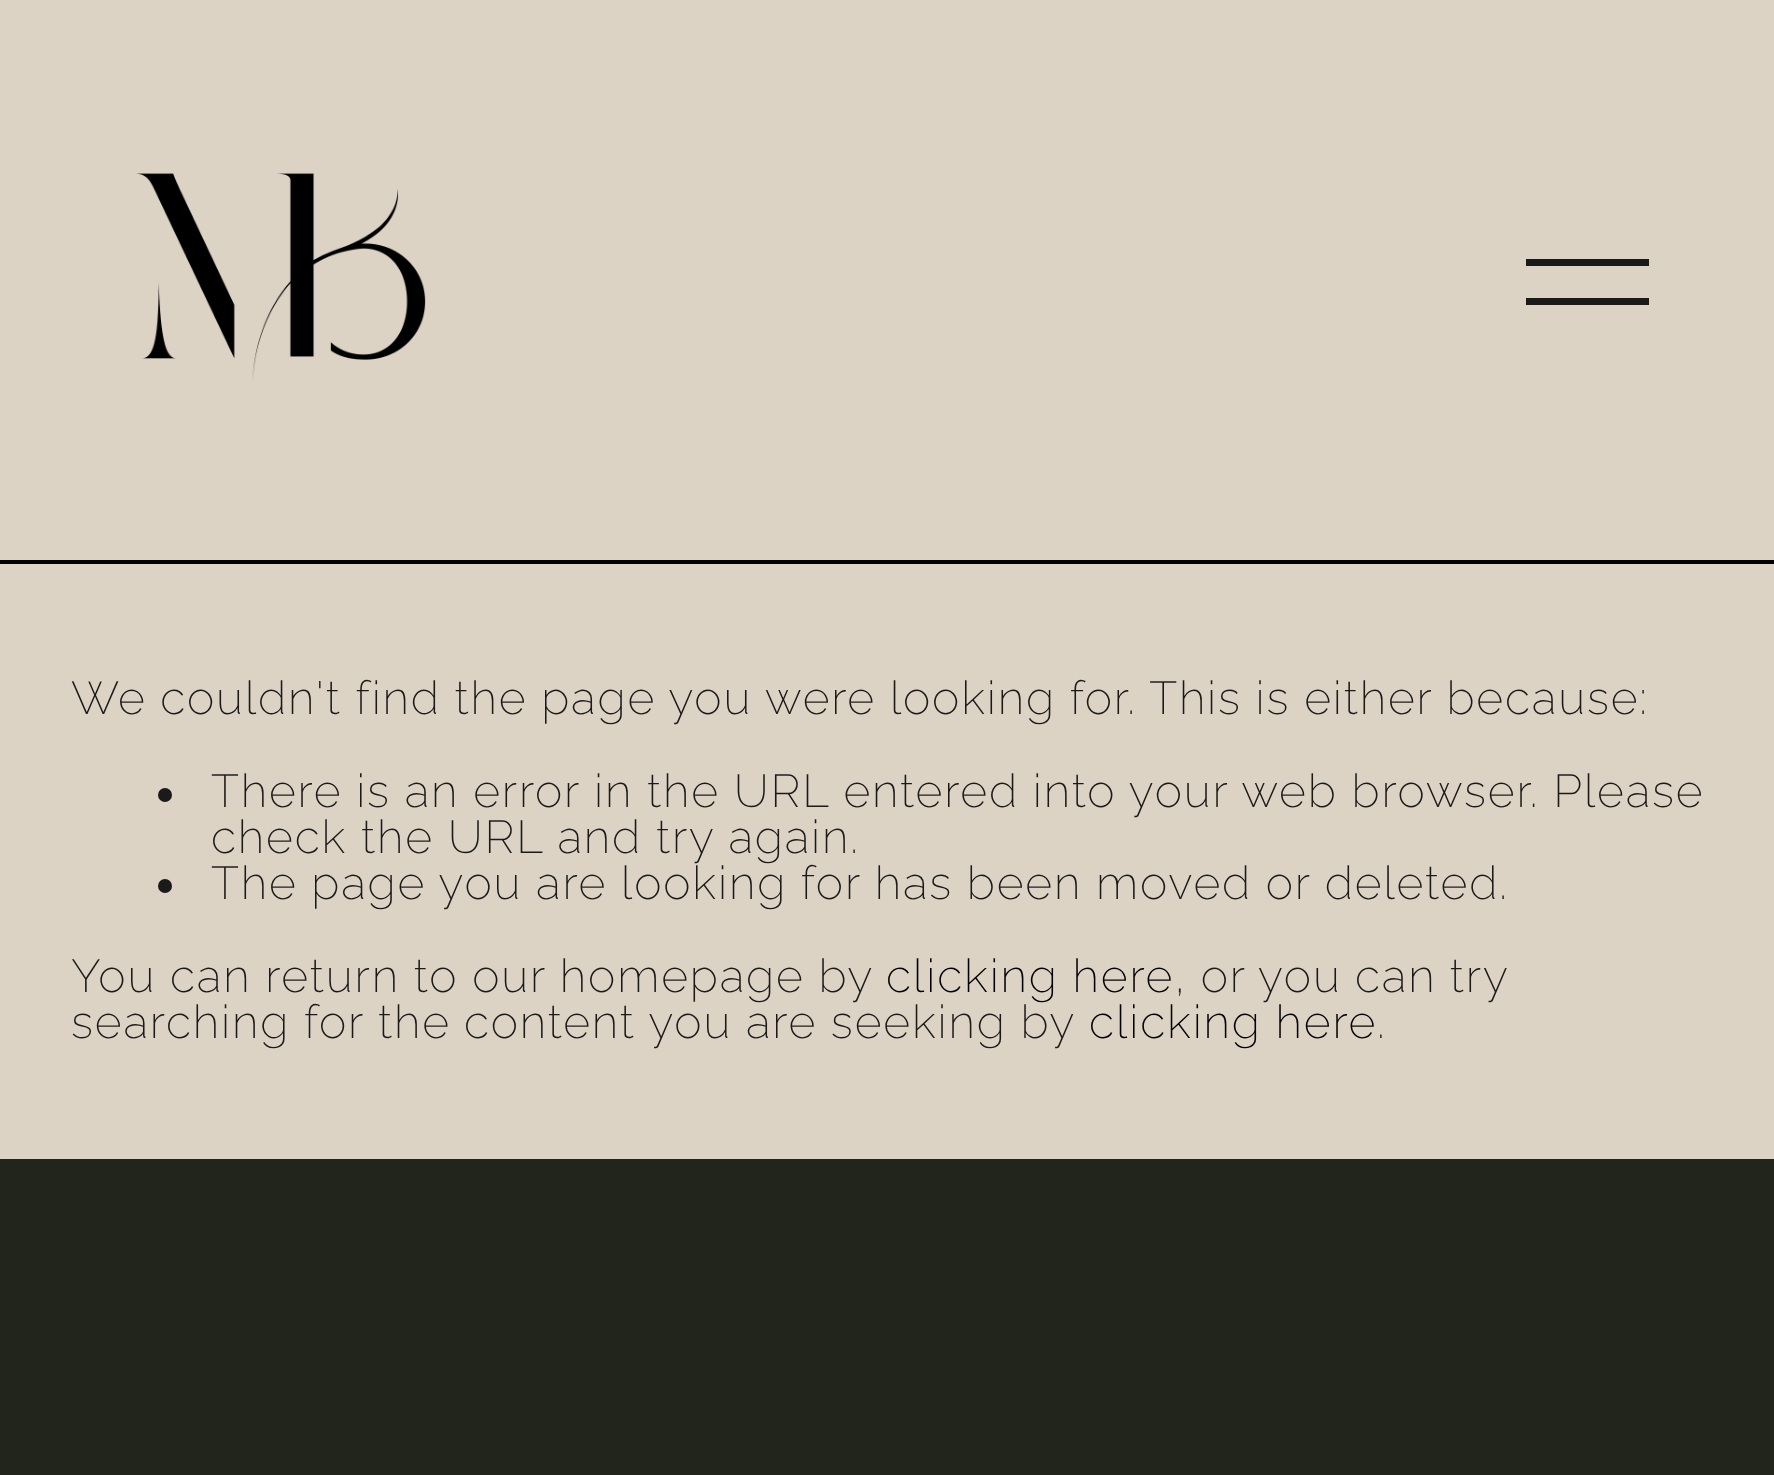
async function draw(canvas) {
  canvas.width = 1774
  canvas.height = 1475
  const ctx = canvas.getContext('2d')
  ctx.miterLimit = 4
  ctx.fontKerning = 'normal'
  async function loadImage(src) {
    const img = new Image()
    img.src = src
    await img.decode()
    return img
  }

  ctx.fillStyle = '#ddd3c5'
  ctx.fillRect(0, 0, 1774, 1475)
  ctx.drawImage(await loadImage('image0.png'), 136, 173, 290, 208)
  ctx.fillStyle = '#1a1a1a'
  ctx.fillRect(1526, 259, 123, 7)
  ctx.fillRect(1526, 298, 123, 7)
  ctx.fillStyle = '#000'
  ctx.fillRect(0, 560, 1774, 4)
  ctx.letterSpacing = '1.85px'
  ctx.wordSpacing = '-0.1px'
  ctx.font = '200 46.25px Raleway'
  ctx.fillStyle = '#1a1a1a'
  ctx.fillText('We couldn\'t find the page you were looking for. This is either because:', 71, 714)
  ctx.beginPath()
  ctx.arc(165, 795, 7, 0, 2 * Math.PI)
  ctx.fill()
  ctx.wordSpacing = '0px'
  ctx.fillText('There is an error in the URL entered into your web browser. Please', 211, 807)
  ctx.fillText('check the URL and try again.', 211, 853)
  ctx.beginPath()
  ctx.arc(165, 886, 7, 0, 2 * Math.PI)
  ctx.fill()
  ctx.wordSpacing = '-0.1px'
  ctx.fillText('The page you are looking for has been moved or deleted.', 211, 899)
  ctx.wordSpacing = '0px'
  ctx.fillText('You can return to our homepage by', 71, 992)
  ctx.fillStyle = '#000'
  ctx.fillText('clicking here', 886, 992)
  ctx.wordSpacing = '-0.5px'
  ctx.fillStyle = '#1a1a1a'
  ctx.fillText(', or you can try', 1174, 992)
  ctx.wordSpacing = '0px'
  ctx.fillText('searching for the', 71, 1038)
  ctx.fillText('content you are seeking by', 464, 1038)
  ctx.fillStyle = '#000'
  ctx.fillText('clicking here', 1089, 1038)
  ctx.fillStyle = '#1a1a1a'
  ctx.fillText('.', 1377, 1038)
  ctx.fillStyle = '#22251b'
  ctx.fillRect(0, 1159, 1774, 316)
}

draw(document.querySelector('canvas'))
